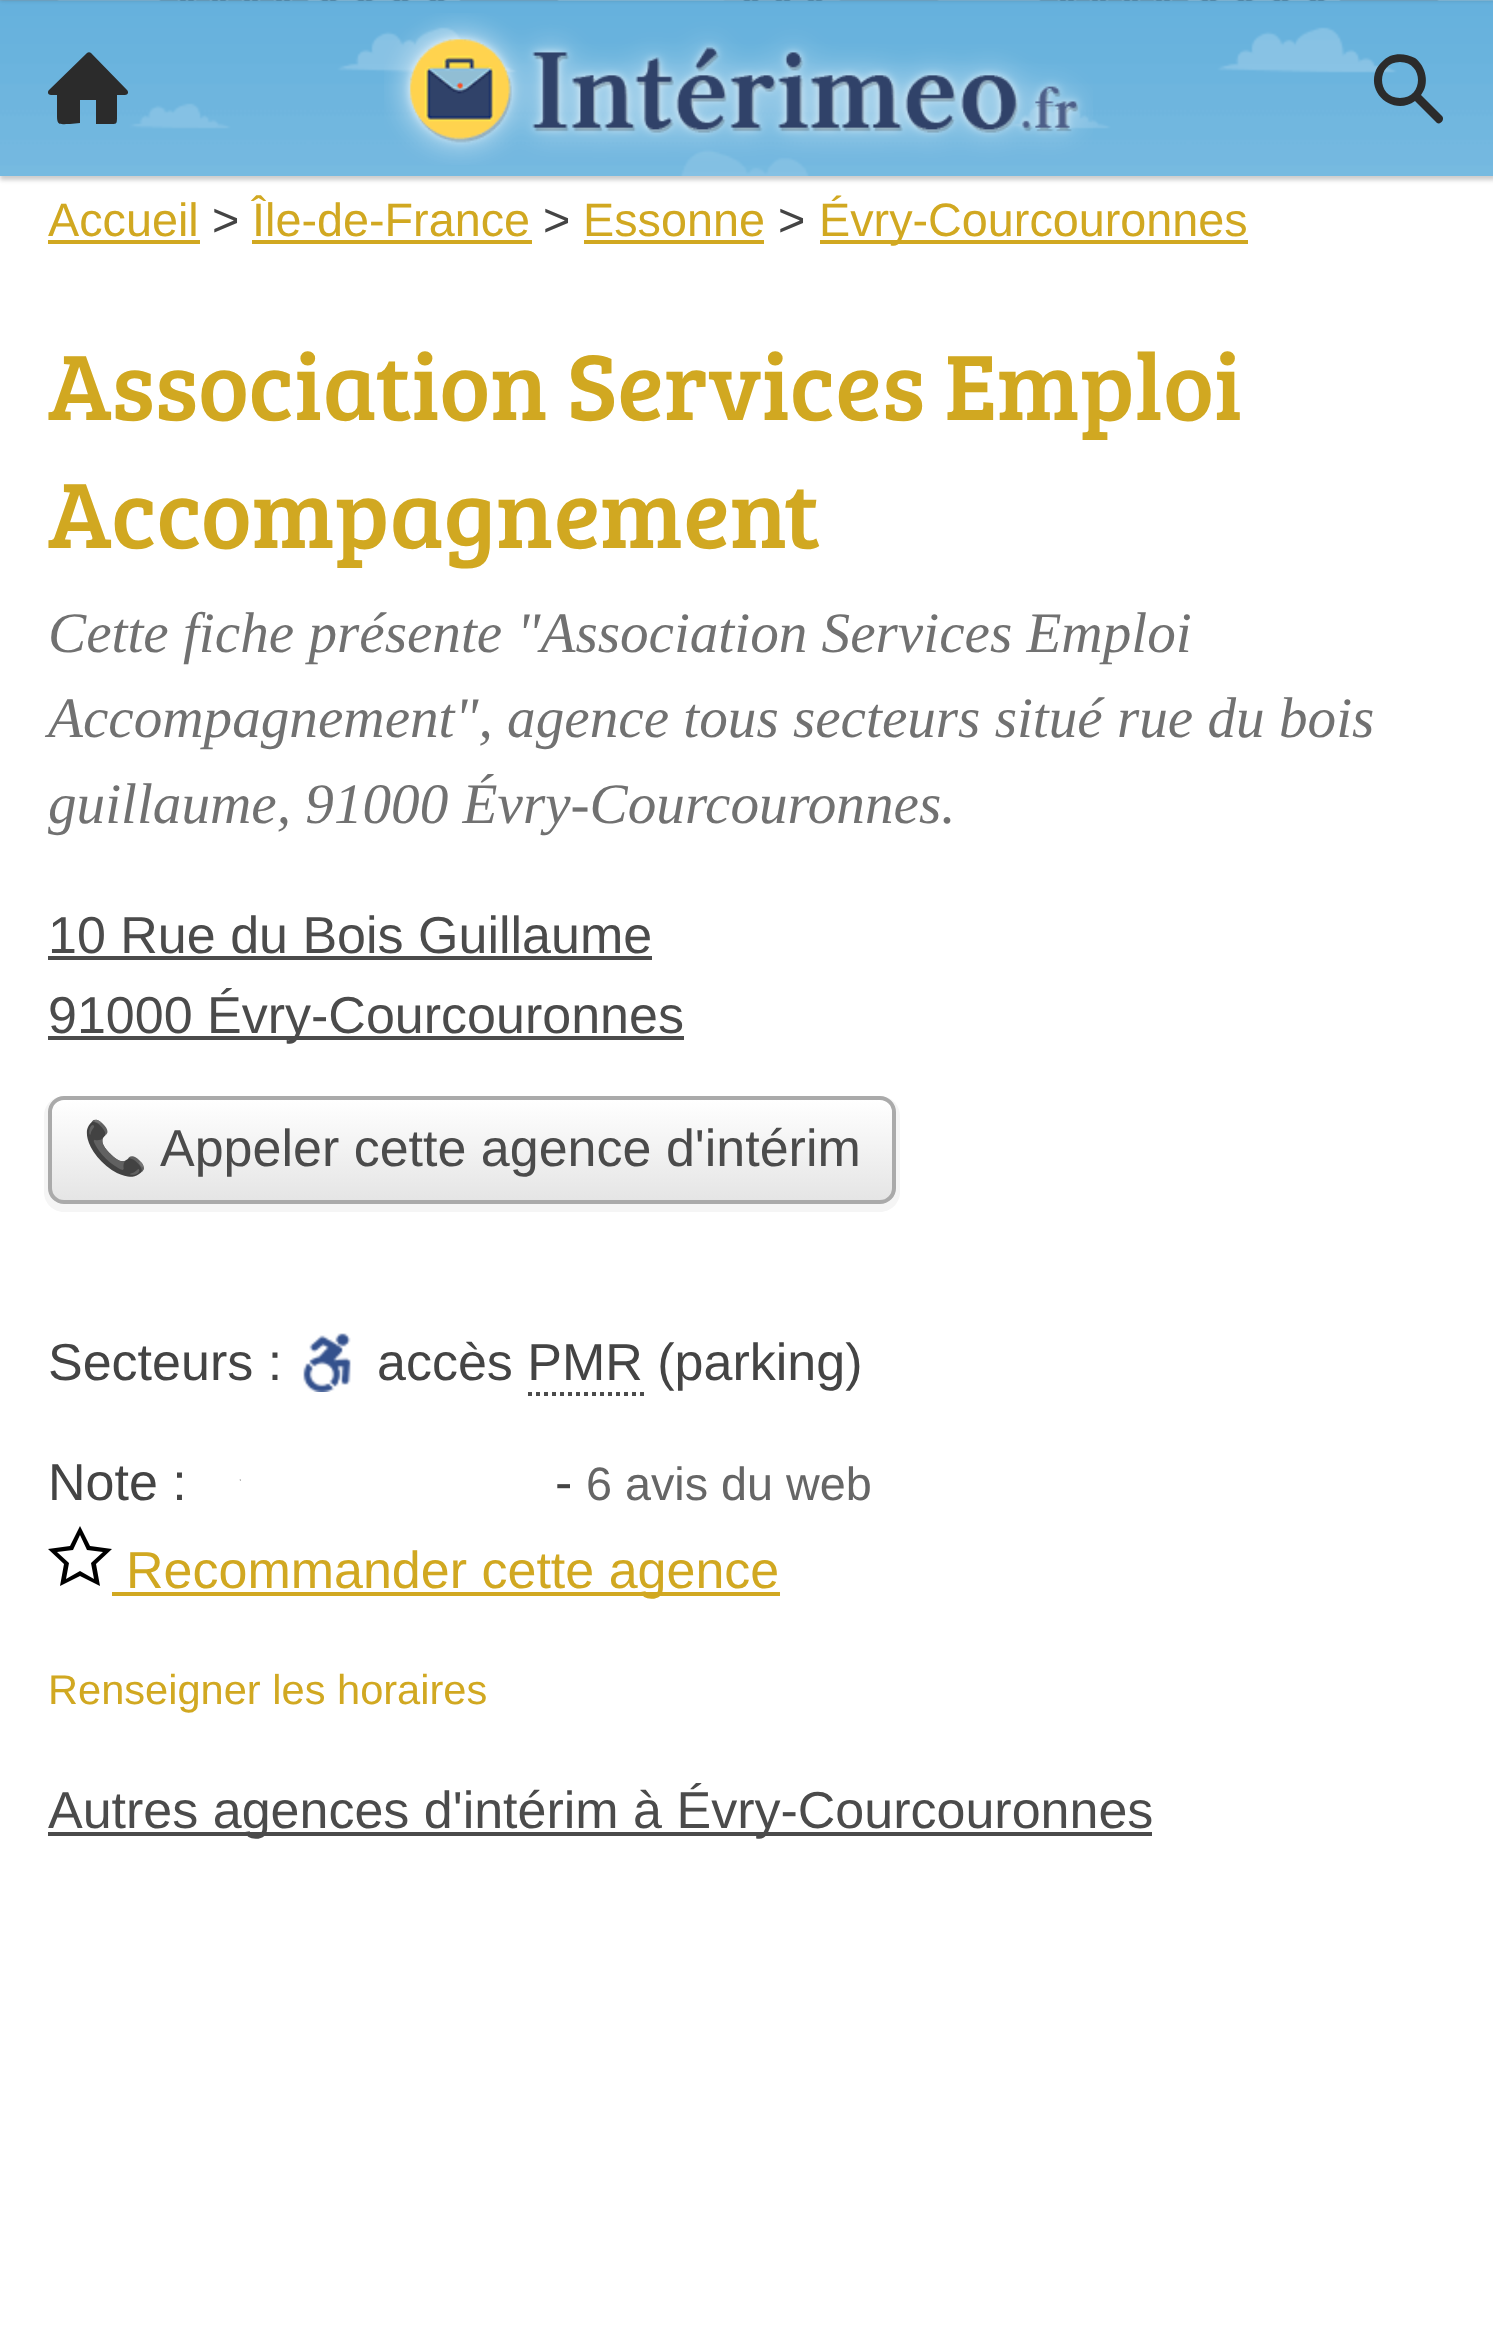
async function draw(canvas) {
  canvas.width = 1493
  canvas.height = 2327
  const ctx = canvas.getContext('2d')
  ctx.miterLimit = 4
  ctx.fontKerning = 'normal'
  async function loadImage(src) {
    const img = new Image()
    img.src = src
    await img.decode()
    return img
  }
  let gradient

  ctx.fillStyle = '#fff'
  ctx.fillRect(0, 0, 1493, 2327)
  ctx.fillStyle = '#00000033'
  ctx.filter = 'blur(2px)'
  ctx.beginPath()
  ctx.rect(0, 4, 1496, 176)
  ctx.fill()
  ctx.filter = 'none'
  ctx.drawImage(await loadImage('image0.png'), 0, 0, 1493, 176)
  ctx.drawImage(await loadImage('image1.png'), 384, 13, 709, 152)
  ctx.filter = 'blur(2px)'
  ctx.beginPath()
  ctx.rect(0, -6, 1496, 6)
  ctx.fill()
  ctx.filter = 'none'
  ctx.fillStyle = '#2b2b2b'
  ctx.beginPath()
  ctx.moveTo(51, 95)
  ctx.lineTo(57, 95)
  ctx.lineTo(57, 116)
  ctx.bezierCurveTo(57, 126, 60, 124, 70, 124)
  ctx.lineTo(80, 123)
  ctx.lineTo(80, 100)
  ctx.lineTo(96, 100)
  ctx.lineTo(96, 124)
  ctx.lineTo(108, 124)
  ctx.bezierCurveTo(117, 124, 117, 125, 117, 116)
  ctx.lineTo(117, 95)
  ctx.lineTo(125, 95)
  ctx.bezierCurveTo(128, 95, 129, 92, 127, 90)
  ctx.lineTo(91, 53)
  ctx.bezierCurveTo(90, 52, 88, 52, 87, 53)
  ctx.lineTo(49, 90)
  ctx.bezierCurveTo(47, 92, 48, 95, 51, 95)
  ctx.closePath()
  ctx.fill('evenodd')
  ctx.beginPath()
  ctx.moveTo(1442, 116)
  ctx.lineTo(1421, 95)
  ctx.bezierCurveTo(1430, 84, 1426, 66, 1415, 58)
  ctx.bezierCurveTo(1407, 54, 1398, 53, 1390, 56)
  ctx.bezierCurveTo(1384, 59, 1379, 64, 1376, 70)
  ctx.bezierCurveTo(1366, 95, 1395, 116, 1415, 101)
  ctx.lineTo(1437, 123)
  ctx.bezierCurveTo(1441, 125, 1445, 119, 1442, 116)
  ctx.closePath()
  ctx.moveTo(1400, 98)
  ctx.bezierCurveTo(1376, 98, 1376, 62, 1400, 62)
  ctx.bezierCurveTo(1424, 62, 1424, 98, 1400, 98)
  ctx.closePath()
  ctx.fill()
  ctx.font = '46.75px Liberation Sans'
  ctx.fillStyle = '#d1a821'
  ctx.fillText('Accueil', 48, 236)
  ctx.fillRect(48, 240, 152, 4)
  ctx.fillStyle = '#444'
  ctx.fillText('>', 212, 236)
  ctx.fillStyle = '#d1a821'
  ctx.fillText('Île-de-France', 252, 236)
  ctx.fillRect(252, 240, 280, 4)
  ctx.fillStyle = '#444'
  ctx.fillText('>', 543, 236)
  ctx.fillStyle = '#d1a821'
  ctx.fillText('Essonne', 583, 236)
  ctx.fillRect(584, 240, 180, 4)
  ctx.fillStyle = '#444'
  ctx.fillText('>', 778, 236)
  ctx.fillStyle = '#d1a821'
  ctx.fillRect(820, 240, 428, 4)
  ctx.fillText('Évry-Courcouronnes', 819, 236)
  ctx.font = '96px Bree Serif'
  ctx.fillText('Association Services Emploi', 48, 420)
  ctx.fillText('Accompagnement', 48, 548)
  ctx.font = 'italic 57.2px Liberation Serif'
  ctx.fillStyle = '#717171'
  ctx.fillText('Cette fiche présente "Association Services Emploi', 48, 652)
  ctx.fillText('Accompagnement", agence tous secteurs situé rue du bois', 48, 737)
  ctx.fillText('guillaume, 91000 Évry-Courcouronnes.', 48, 823)
  ctx.font = '52px Liberation Sans'
  ctx.fillStyle = '#4b4b4b'
  ctx.fillText('10 Rue du Bois Guillaume', 48, 953)
  ctx.fillRect(48, 956, 604, 4)
  ctx.fillRect(48, 1036, 636, 4)
  ctx.fillText('91000 Évry-Courcouronnes', 48, 1033)
  ctx.fillStyle = '#f5f5f5'
  ctx.beginPath()
  ctx.moveTo(883, 1096)
  ctx.bezierCurveTo(891, 1098, 896, 1104, 896, 1112)
  ctx.lineTo(896, 1188)
  ctx.bezierCurveTo(896, 1197, 889, 1204, 880, 1204)
  ctx.lineTo(64, 1204)
  ctx.bezierCurveTo(55, 1204, 48, 1197, 48, 1188)
  ctx.lineTo(48, 1112)
  ctx.bezierCurveTo(48, 1104, 53, 1098, 61, 1096)
  ctx.bezierCurveTo(51, 1098, 44, 1106, 44, 1116)
  ctx.lineTo(44, 1192)
  ctx.bezierCurveTo(44, 1203, 53, 1212, 64, 1212)
  ctx.lineTo(880, 1212)
  ctx.bezierCurveTo(891, 1212, 900, 1203, 900, 1192)
  ctx.lineTo(900, 1116)
  ctx.bezierCurveTo(900, 1106, 893, 1098, 883, 1096)
  ctx.closePath()
  ctx.fill()
  ctx.save()
  ctx.beginPath()
  ctx.roundRect(48, 1096, 848, 108, 16)
  ctx.clip()
  gradient = ctx.createLinearGradient(472, 1100, 472, 1200)
  gradient.addColorStop(0, '#fff')
  gradient.addColorStop(1, '#e5e5e5')
  ctx.fillStyle = gradient
  ctx.fillRect(48, 1100, 848, 100)
  ctx.restore()
  ctx.beginPath()
  ctx.roundRect(50, 1098, 844, 104, 14)
  ctx.strokeStyle = '#aaa'
  ctx.lineWidth = 4
  ctx.stroke()
  ctx.font = '52px Noto Color Emoji'
  ctx.fillStyle = '#4b4b4b'
  ctx.fillText('📞', 83, 1166)
  ctx.font = '52px Liberation Sans'
  ctx.fillText('Appeler cette agence d\'intérim', 160, 1166)
  ctx.fillStyle = '#444'
  ctx.fillText('Secteurs :', 48, 1380)
  ctx.drawImage(await loadImage('image2.png'), 303, 1333, 48, 59)
  ctx.fillText('accès PMR (parking)', 377, 1380)
  ctx.beginPath()
  ctx.moveTo(528, 1394)
  ctx.lineTo(644, 1394)
  ctx.strokeStyle = '#4b4b4b'
  ctx.setLineDash([4, 4])
  ctx.stroke()
  ctx.fillText('Note :', 48, 1500)
  ctx.drawImage(await loadImage('image3.png'), 239, 1479, 2, 2)
  ctx.font = '46.75px Liberation Sans'
  ctx.fillStyle = '#666'
  ctx.fillText('6 avis du web', 586, 1500)
  ctx.font = '52px Liberation Sans'
  ctx.fillStyle = '#444'
  ctx.fillText('-', 555, 1500)
  ctx.fillStyle = '#d1a821'
  ctx.fillRect(112, 1592, 668, 4)
  ctx.fillText('Recommander cette agence', 126, 1588)
  ctx.fillStyle = '#000'
  ctx.beginPath()
  ctx.moveTo(100, 1586)
  ctx.lineTo(80, 1576)
  ctx.lineTo(60, 1586)
  ctx.lineTo(64, 1564)
  ctx.lineTo(48, 1549)
  ctx.lineTo(70, 1546)
  ctx.lineTo(80, 1526)
  ctx.lineTo(90, 1546)
  ctx.lineTo(112, 1549)
  ctx.lineTo(96, 1564)
  ctx.closePath()
  ctx.moveTo(80, 1571)
  ctx.lineTo(94, 1579)
  ctx.lineTo(91, 1563)
  ctx.lineTo(103, 1552)
  ctx.lineTo(87, 1550)
  ctx.lineTo(80, 1535)
  ctx.lineTo(73, 1550)
  ctx.lineTo(57, 1552)
  ctx.lineTo(69, 1563)
  ctx.lineTo(66, 1579)
  ctx.closePath()
  ctx.fill()
  ctx.font = '41.6px Liberation Sans'
  ctx.fillStyle = '#d1a821'
  ctx.fillText('Renseigner les horaires', 48, 1704)
  ctx.fillStyle = '#4b4b4b'
  ctx.fillRect(48, 1832, 1104, 4)
  ctx.font = '52px Liberation Sans'
  ctx.fillText('Autres agences d\'intérim à Évry-Courcouronnes', 48, 1828)
}

draw(document.querySelector('canvas'))
